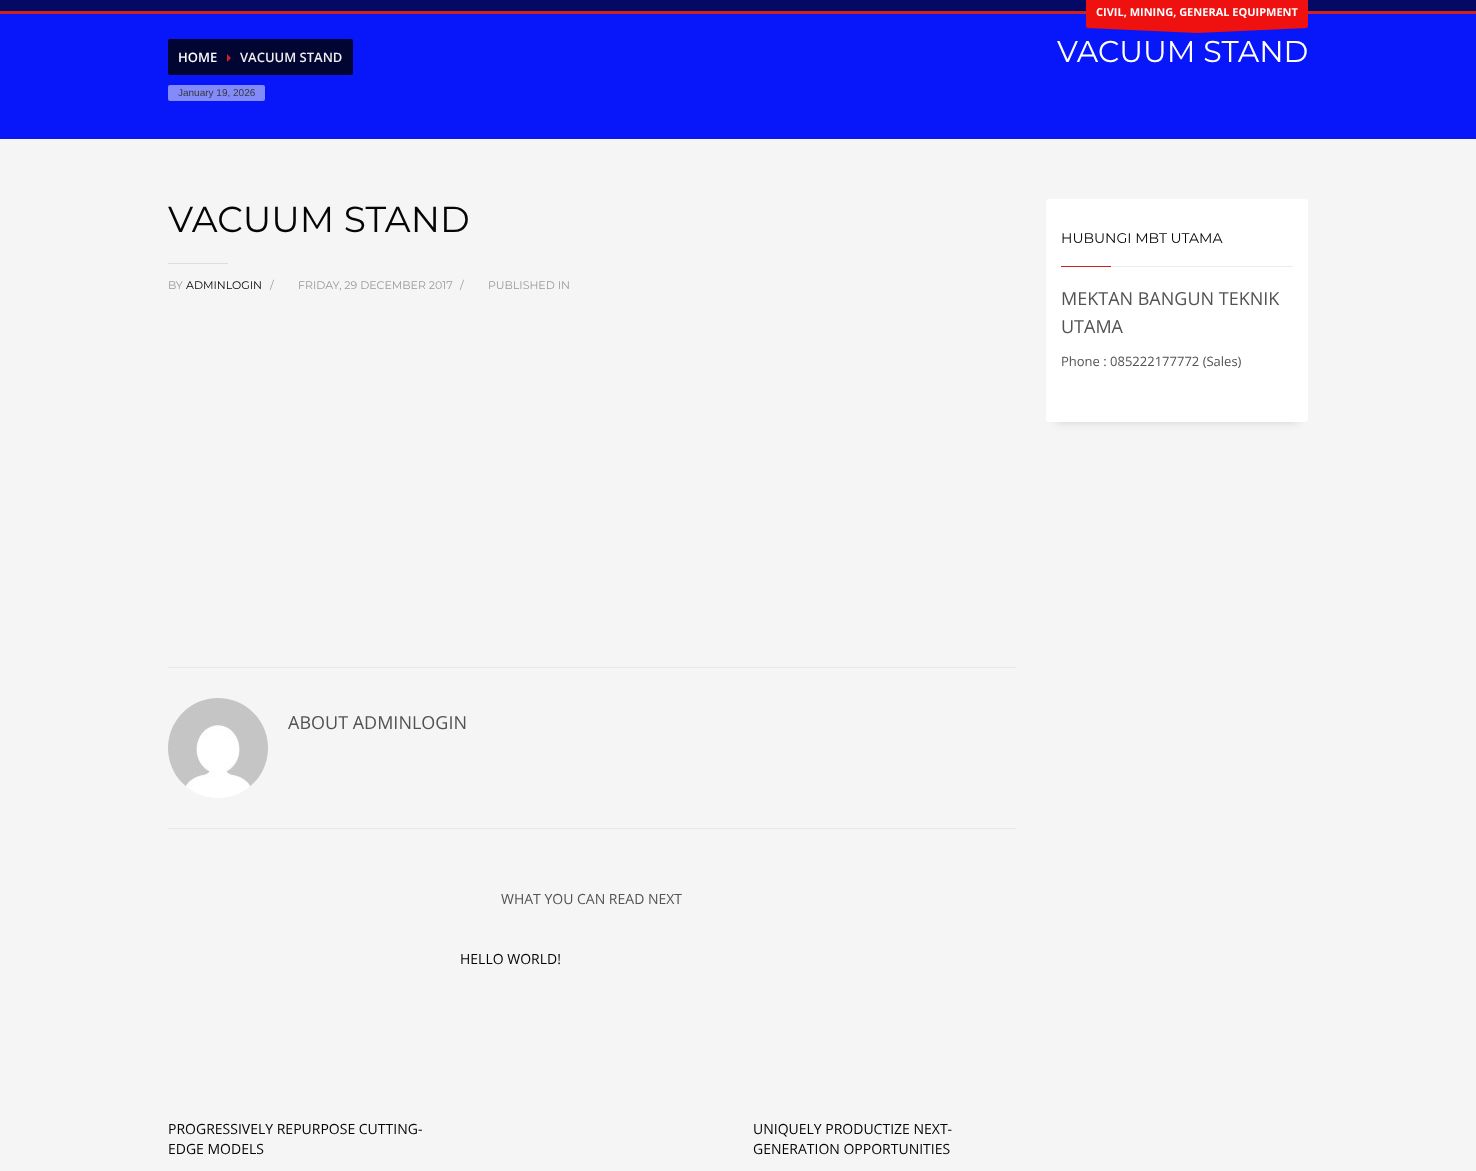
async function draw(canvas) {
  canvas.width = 1476
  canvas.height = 1171
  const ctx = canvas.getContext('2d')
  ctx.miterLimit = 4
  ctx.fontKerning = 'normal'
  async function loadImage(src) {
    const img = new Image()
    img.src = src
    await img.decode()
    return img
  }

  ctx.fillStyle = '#f5f5f5'
  ctx.fillRect(0, 0, 1476, 1171)
  ctx.fillStyle = '#030964'
  ctx.fillRect(0, 0, 1476, 11)
  ctx.fillStyle = '#cd2122'
  ctx.fillRect(0, 11, 1476, 3)
  ctx.fillStyle = '#0717f9'
  ctx.fillRect(0, 14, 1476, 125)
  ctx.fillStyle = '#ef1010'
  ctx.beginPath()
  ctx.roundRect(1086, -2, 222, 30, 2)
  ctx.fill()
  ctx.font = 'bold 11px Open Sans'
  ctx.fillStyle = '#fff'
  ctx.fillText('CIVIL, MINING, GENERAL EQUIPMENT', 1096, 16)
  ctx.fillStyle = '#ef1010'
  ctx.beginPath()
  ctx.moveTo(1308, 28)
  ctx.lineTo(1197, 33)
  ctx.lineTo(1086, 28)
  ctx.closePath()
  ctx.fill('evenodd')
  ctx.fillStyle = '#010532'
  ctx.beginPath()
  ctx.roundRect(168, 39, 185, 36, 2)
  ctx.fill()
  ctx.font = '600 13px Open Sans'
  ctx.fillStyle = '#fff'
  ctx.fillText('HOME', 178, 62)
  ctx.fillStyle = '#cd2122'
  ctx.beginPath()
  ctx.moveTo(227, 62)
  ctx.lineTo(227, 54)
  ctx.lineTo(231, 58)
  ctx.closePath()
  ctx.fill()
  ctx.fillStyle = '#eee'
  ctx.fillText('VACUUM STAND', 240, 62)
  ctx.fillStyle = '#838bfc'
  ctx.beginPath()
  ctx.roundRect(168, 85, 97, 16, 2)
  ctx.fill()
  ctx.font = '10px Liberation Sans'
  ctx.fillStyle = '#383838'
  ctx.fillText('January 19, 2026', 178, 96)
  ctx.font = '30px Montserrat'
  ctx.fillStyle = '#fff'
  ctx.fillText('VACUUM STAND', 1057, 62)
  ctx.font = '36px Montserrat'
  ctx.fillStyle = '#050505'
  ctx.fillText('VACUUM STAND', 168, 232)
  ctx.fillStyle = '#ddd'
  ctx.fillRect(168, 263, 60, 1)
  ctx.font = '11px Montserrat'
  ctx.fillStyle = '#9a9a9a'
  ctx.fillText('BY', 168, 289)
  ctx.fillStyle = '#050505'
  ctx.fillText('ADMINLOGIN', 186, 289)
  ctx.fillStyle = '#9a9a9a'
  ctx.fillText('/', 270, 289)
  ctx.fillText('FRIDAY, 29 DECEMBER 2017', 298, 289)
  ctx.fillText('/', 460, 289)
  ctx.fillText('PUBLISHED IN', 488, 289)
  ctx.fillStyle = '#e9e9e9'
  ctx.fillRect(168, 667, 848, 1)
  ctx.fillRect(168, 828, 848, 1)
  ctx.drawImage(await loadImage('image0.png'), 168, 698, 100, 100)
  ctx.font = '18px Open Sans'
  ctx.fillStyle = '#535353'
  ctx.fillText('ABOUT ADMINLOGIN', 288, 729)
  ctx.font = '14px Open Sans'
  ctx.fillText('WHAT YOU CAN READ NEXT', 501, 904)
  ctx.fillStyle = '#050505'
  ctx.fillText('HELLO WORLD!', 460, 964)
  ctx.fillText('PROGRESSIVELY REPURPOSE CUTTING-', 168, 1134)
  ctx.fillText('EDGE MODELS', 168, 1154)
  ctx.fillText('UNIQUELY PRODUCTIZE NEXT-', 753, 1134)
  ctx.fillText('GENERATION OPPORTUNITIES', 753, 1154)
  ctx.fillStyle = '#00000026'
  ctx.filter = 'blur(5px)'
  ctx.beginPath()
  ctx.rect(1056, 219, 242, 203)
  ctx.fill()
  ctx.filter = 'none'
  ctx.fillStyle = '#fff'
  ctx.beginPath()
  ctx.roundRect(1046, 199, 262, 223, 3)
  ctx.fill()
  ctx.font = '14px Montserrat'
  ctx.fillStyle = '#050505'
  ctx.fillText('HUBUNGI MBT UTAMA', 1061, 243)
  ctx.fillStyle = '#cd2122'
  ctx.fillRect(1061, 266, 50, 1)
  ctx.fillStyle = '#ececec'
  ctx.fillRect(1111, 266, 182, 1)
  ctx.font = '18px Open Sans'
  ctx.fillStyle = '#535353'
  ctx.fillText('MEKTAN BANGUN TEKNIK', 1061, 305)
  ctx.fillText('UTAMA', 1061, 333)
  ctx.font = '13px Open Sans'
  ctx.fillText('Phone : 085222177772 (Sales)', 1061, 366)
}

draw(document.querySelector('canvas'))
